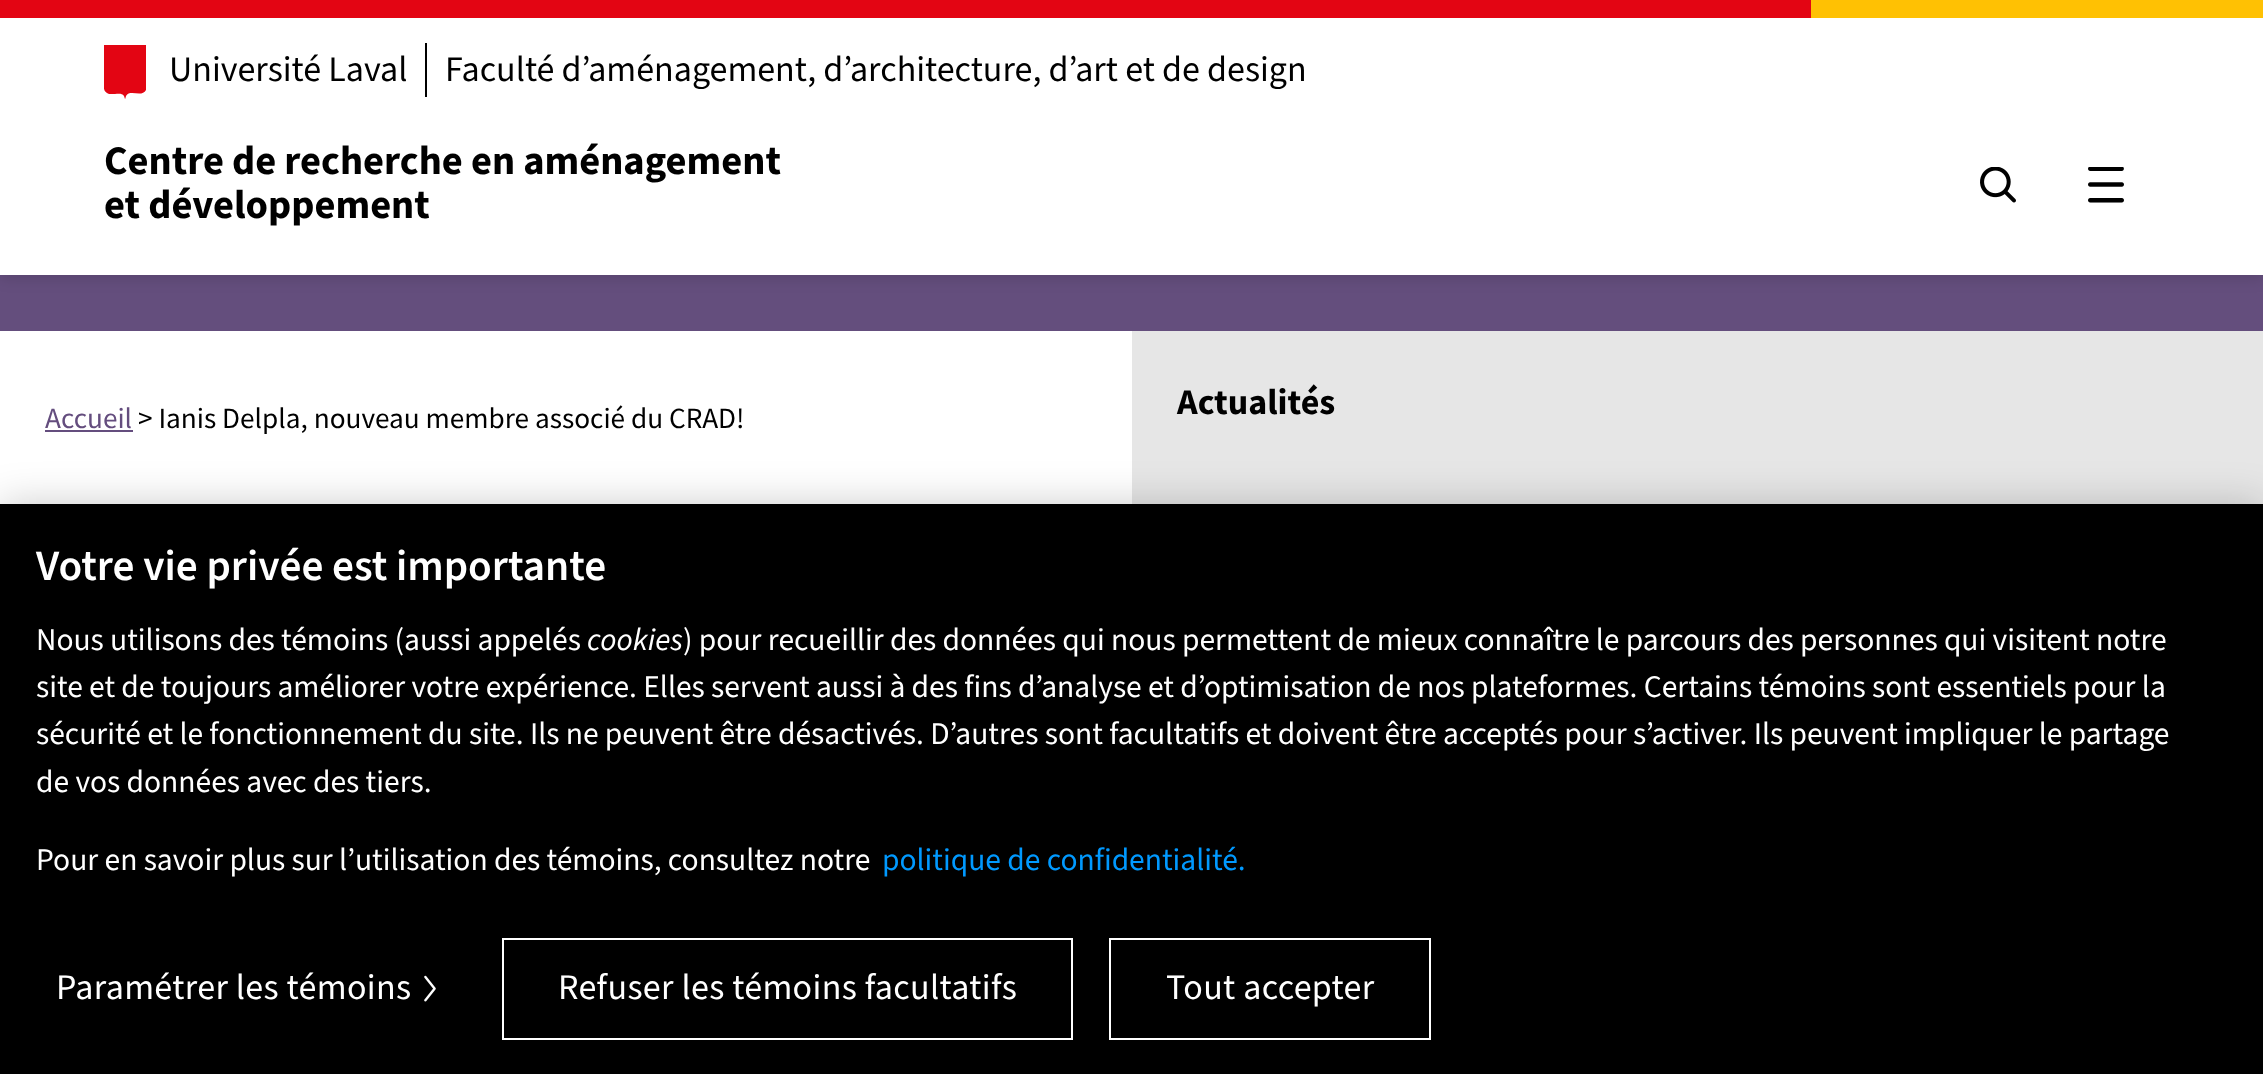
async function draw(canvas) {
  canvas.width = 2263
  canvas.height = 1074
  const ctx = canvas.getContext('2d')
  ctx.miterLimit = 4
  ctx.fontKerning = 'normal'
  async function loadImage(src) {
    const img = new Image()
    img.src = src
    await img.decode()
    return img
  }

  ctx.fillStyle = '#644e7d'
  ctx.fillRect(0, 0, 2263, 1074)
  ctx.fillStyle = '#00000026'
  ctx.filter = 'blur(8px)'
  ctx.beginPath()
  ctx.rect(0, 2, 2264, 275)
  ctx.fill()
  ctx.filter = 'none'
  ctx.fillStyle = '#e30513'
  ctx.fillRect(0, 0, 1811, 18)
  ctx.fillStyle = '#ffc103'
  ctx.fillRect(1811, 0, 452, 18)
  ctx.fillStyle = '#fff'
  ctx.fillRect(0, 18, 2263, 257)
  ctx.save()
  ctx.beginPath()
  ctx.rect(104, 45, 42, 54)
  ctx.clip()
  ctx.fillStyle = '#e30513'
  ctx.beginPath()
  ctx.moveTo(104, 45)
  ctx.lineTo(104, 80)
  ctx.bezierCurveTo(104, 85, 102, 92, 109, 94)
  ctx.lineTo(115, 94)
  ctx.bezierCurveTo(118, 94, 122, 93, 124, 96)
  ctx.lineTo(125, 99)
  ctx.bezierCurveTo(125, 100, 126, 96, 126, 96)
  ctx.bezierCurveTo(130, 89, 142, 98, 146, 90)
  ctx.bezierCurveTo(147, 86, 146, 78, 146, 73)
  ctx.lineTo(146, 45)
  ctx.closePath()
  ctx.fill()
  ctx.restore()
  ctx.font = '36px "Source Sans 3"'
  ctx.fillStyle = '#000'
  ctx.fillText('Université Laval', 169, 81)
  ctx.fillRect(425, 43, 2, 54)
  ctx.fillText('Faculté d’aménagement, d’architecture, d’art et de design', 445, 81)
  ctx.font = 'bold 40.5px "Source Sans 3"'
  ctx.fillText('Centre de recherche en aménagement', 104, 174)
  ctx.fillText('et développement', 104, 218)
  ctx.drawImage(await loadImage('image0.png'), 1980, 167, 36, 36)
  ctx.drawImage(await loadImage('image1.png'), 2088, 167, 36, 36)
  ctx.fillStyle = '#fff'
  ctx.fillRect(0, 331, 1132, 173)
  ctx.fillStyle = '#e6e6e6'
  ctx.fillRect(1132, 331, 1131, 173)
  ctx.font = 'bold 36px Source Sans Pro'
  ctx.fillStyle = '#000'
  ctx.fillText('Actualités', 1177, 414)
  ctx.font = '29.25px Source Sans Pro'
  ctx.fillStyle = '#644d7e'
  ctx.fillText('Accueil', 45, 428)
  ctx.fillRect(45, 430, 88, 2)
  ctx.fillStyle = '#000'
  ctx.fillText('> Ianis Delpla, nouveau membre associé du CRAD!', 138, 428)
  ctx.fillStyle = '#00000033'
  ctx.filter = 'blur(20px)'
  ctx.beginPath()
  ctx.rect(0, 504, 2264, 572)
  ctx.fill()
  ctx.filter = 'none'
  ctx.fillStyle = '#000'
  ctx.fillRect(0, 504, 2263, 570)
  ctx.font = '600 43.25px "Source Sans 3"'
  ctx.fillStyle = '#fff'
  ctx.fillText('Votre vie privée est importante', 36, 580)
  ctx.font = '31.5px "Source Sans 3"'
  ctx.fillText('Nous utilisons des témoins (aussi appelés', 36, 650)
  ctx.font = 'italic 31.5px "Source Sans 3"'
  ctx.fillText('cookies', 587, 650)
  ctx.font = '31.5px "Source Sans 3"'
  ctx.fillText(') pour recueillir des données qui nous permettent de mieux connaître le parcours des personnes qui visitent notre', 683, 650)
  ctx.fillText('site et de toujours améliorer votre expérience. Elles servent aussi à des fins d’analyse et d’optimisation de nos plateformes. Certains témoins sont essentiels pour la', 36, 697)
  ctx.fillText('sécurité et le fonctionnement du site. Ils ne peuvent être désactivés. D’autres sont facultatifs et doivent être acceptés pour s’activer. Ils peuvent impliquer le partage', 36, 744)
  ctx.fillText('de vos données avec des tiers.', 36, 792)
  ctx.fillText('Pour en savoir plus sur l’utilisation des témoins, consultez notre', 36, 870)
  ctx.fillStyle = '#09f'
  ctx.fillText('politique de confidentialité.', 882, 870)
  ctx.letterSpacing = '0.35px'
  ctx.font = '36px "Source Sans 3"'
  ctx.fillStyle = '#fff'
  ctx.fillText('Paramétrer les témoins', 56, 999)
  ctx.drawImage(await loadImage('image2.png'), 424, 975, 12, 27)
  ctx.strokeStyle = '#fff'
  ctx.lineWidth = 2
  ctx.strokeRect(503, 939, 569, 100)
  ctx.fillText('Refuser les témoins facultatifs', 558, 999)
  ctx.strokeRect(1110, 939, 320, 100)
  ctx.fillText('Tout accepter', 1166, 999)
}

draw(document.querySelector('canvas'))
